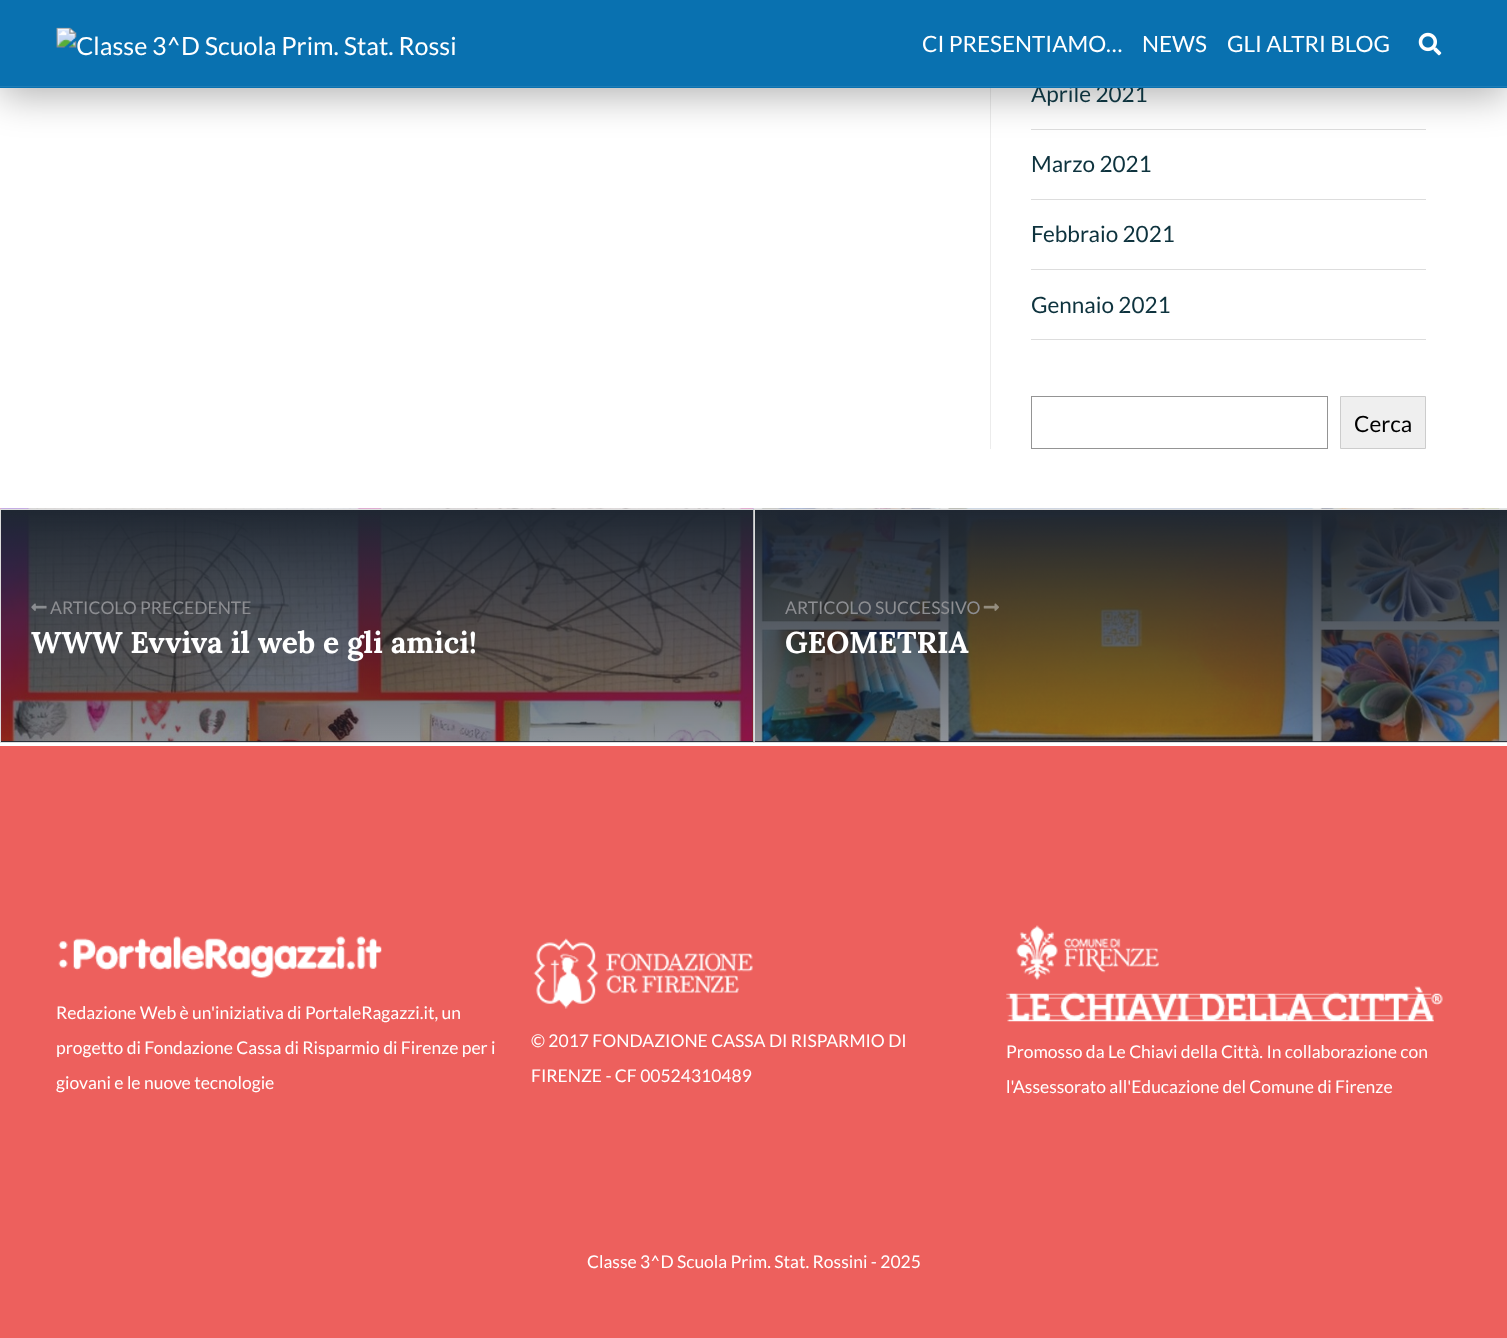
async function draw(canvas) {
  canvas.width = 1507
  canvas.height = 1338
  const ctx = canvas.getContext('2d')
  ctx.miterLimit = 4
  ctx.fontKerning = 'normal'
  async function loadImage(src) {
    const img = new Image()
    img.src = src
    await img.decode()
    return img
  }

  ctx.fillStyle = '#fff'
  ctx.fillRect(0, 0, 1507, 1338)
  ctx.fillStyle = '#ececec'
  ctx.fillRect(990, 88, 1, 361)
  ctx.fillStyle = '#ddd'
  ctx.fillRect(1031, 129, 395, 1)
  ctx.fillStyle = '#0000004d'
  ctx.filter = 'blur(19px)'
  ctx.beginPath()
  ctx.rect(0, 9, 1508, 87)
  ctx.fill()
  ctx.filter = 'none'
  ctx.font = '22.5px Lato'
  ctx.fillStyle = '#0e333e'
  ctx.fillText('Aprile 2021', 1031, 102)
  ctx.fillStyle = '#0971b0'
  ctx.fillRect(0, 0, 1507, 88)
  ctx.fillStyle = '#1d7cb6'
  ctx.fillRect(0, 86, 1507, 1)
  ctx.drawImage(await loadImage('image0.png'), 56, 27, 399, 29)
  ctx.fillStyle = '#fff'
  ctx.fillText('CI PRESENTIAMO…', 922, 52)
  ctx.fillText('NEWS', 1142, 52)
  ctx.fillText('GLI ALTRI BLOG', 1227, 52)
  ctx.drawImage(await loadImage('image1.png'), 1418, 32, 24, 24)
  ctx.fillStyle = '#ddd'
  ctx.fillRect(1031, 199, 395, 1)
  ctx.fillStyle = '#0e333e'
  ctx.fillText('Marzo 2021', 1031, 172)
  ctx.fillStyle = '#ddd'
  ctx.fillRect(1031, 269, 395, 1)
  ctx.fillStyle = '#0e333e'
  ctx.fillText('Febbraio 2021', 1031, 242)
  ctx.fillStyle = '#ddd'
  ctx.fillRect(1031, 339, 395, 1)
  ctx.fillStyle = '#0e333e'
  ctx.fillText('Gennaio 2021', 1031, 313)
  ctx.strokeStyle = '#949494'
  ctx.strokeRect(1031.5, 396.5, 296, 52)
  ctx.fillStyle = '#efefef'
  ctx.beginPath()
  ctx.rect(1340.5, 396.5, 85, 52)
  ctx.fill()
  ctx.strokeStyle = '#ccc'
  ctx.stroke()
  ctx.fillStyle = '#000'
  ctx.fillText('Cerca', 1354, 432)
  ctx.drawImage(await loadImage('image2.png'), 0, 508, 754, 234)
  ctx.strokeStyle = '#ddd'
  ctx.strokeRect(0.5, 509.5, 753, 233)
  ctx.drawImage(await loadImage('image3.png'), 31, 603, 16, 8)
  ctx.font = '17.5px Lato'
  ctx.fillStyle = '#8d8e92'
  ctx.fillText('ARTICOLO PRECEDENTE', 50, 614)
  ctx.font = 'bold 30px Lora'
  ctx.fillStyle = '#fff'
  ctx.fillText('WWW Evviva il web e gli amici!', 31, 653)
  ctx.drawImage(await loadImage('image4.png'), 753, 508, 754, 235)
  ctx.strokeRect(754.5, 509.5, 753, 233)
  ctx.font = '17.5px Lato'
  ctx.fillStyle = '#8d8e92'
  ctx.fillText('ARTICOLO SUCCESSIVO', 785, 614)
  ctx.drawImage(await loadImage('image5.png'), 983, 603, 16, 8)
  ctx.font = 'bold 30px Lora'
  ctx.fillStyle = '#fff'
  ctx.fillText('GEOMETRIA', 785, 653)
  ctx.fillStyle = '#ed605d'
  ctx.fillRect(0, 746, 1507, 592)
  ctx.drawImage(await loadImage('image6.png'), 58, 936, 324, 42)
  ctx.font = '17.5px Lato'
  ctx.fillStyle = '#fff'
  ctx.fillText('Redazione Web è un\'iniziativa di PortaleRagazzi.it, un', 56, 1019)
  ctx.fillText('progetto di Fondazione Cassa di Risparmio di Firenze per i', 56, 1054)
  ctx.fillText('giovani e le nuove tecnologie', 56, 1089)
  ctx.drawImage(await loadImage('image7.png'), 533, 938, 220, 71)
  ctx.fillText('© 2017 FONDAZIONE CASSA DI RISPARMIO DI', 531, 1047)
  ctx.fillText('FIRENZE - CF 00524310489', 531, 1082)
  ctx.drawImage(await loadImage('image8.png'), 1016, 925, 143, 55)
  ctx.drawImage(await loadImage('image9.png'), 1006, 986, 437, 36)
  ctx.fillText('Promosso da Le Chiavi della Città. In collaborazione con', 1006, 1058)
  ctx.fillText('l\'Assessorato all\'Educazione del Comune di Firenze', 1006, 1093)
  ctx.fillText('Classe 3^D Scuola Prim. Stat. Rossini - 2025', 587, 1268)
}

draw(document.querySelector('canvas'))
